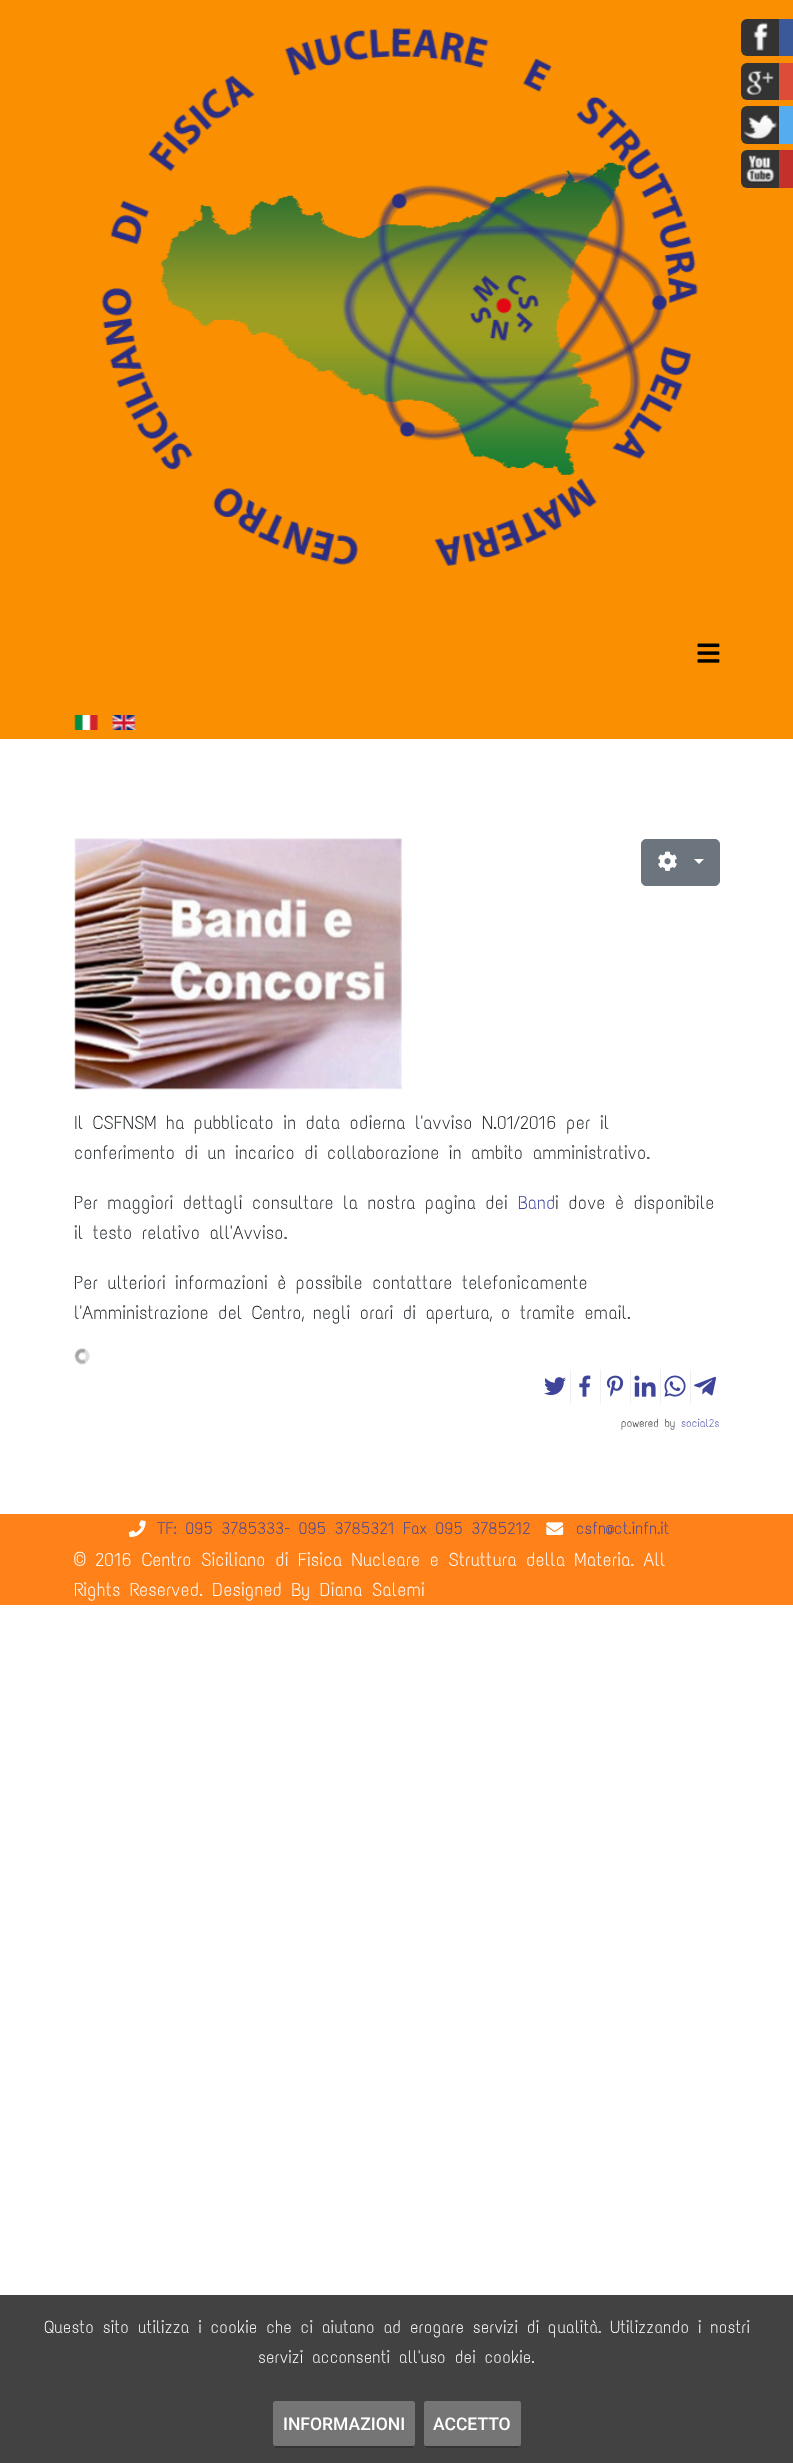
async function draw(canvas) {
  canvas.width = 793
  canvas.height = 2463
  const ctx = canvas.getContext('2d')
  ctx.miterLimit = 4
  ctx.fontKerning = 'normal'
  async function loadImage(src) {
    const img = new Image()
    img.src = src
    await img.decode()
    return img
  }

  ctx.fillStyle = '#fff'
  ctx.fillRect(0, 0, 793, 2463)
  ctx.fillStyle = '#fa9001'
  ctx.fillRect(0, 0, 793, 739)
  ctx.drawImage(await loadImage('image0.png'), 101, 28, 597, 538)
  ctx.fillStyle = '#3b5998'
  ctx.beginPath()
  ctx.moveTo(751, 19)
  ctx.lineTo(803, 19)
  ctx.lineTo(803, 56)
  ctx.lineTo(751, 56)
  ctx.bezierCurveTo(745.5, 56, 741, 51.5, 741, 46)
  ctx.lineTo(741, 29)
  ctx.bezierCurveTo(741, 23.5, 745.5, 19, 751, 19)
  ctx.closePath()
  ctx.fill()
  ctx.fillStyle = '#333'
  ctx.beginPath()
  ctx.roundRect(741, 19, 38, 37, [6, 0, 0, 6])
  ctx.fill()
  ctx.drawImage(await loadImage('image1.png'), 753, 22, 15, 30)
  ctx.fillStyle = '#dd4b39'
  ctx.beginPath()
  ctx.moveTo(751, 63)
  ctx.lineTo(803, 63)
  ctx.lineTo(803, 100)
  ctx.lineTo(751, 100)
  ctx.bezierCurveTo(745.5, 100, 741, 95.5, 741, 90)
  ctx.lineTo(741, 73)
  ctx.bezierCurveTo(741, 67.5, 745.5, 63, 751, 63)
  ctx.closePath()
  ctx.fill()
  ctx.fillStyle = '#333'
  ctx.beginPath()
  ctx.roundRect(741, 63, 38, 37, [6, 0, 0, 6])
  ctx.fill()
  ctx.drawImage(await loadImage('image2.png'), 746, 70, 28, 26)
  ctx.fillStyle = '#55acee'
  ctx.beginPath()
  ctx.moveTo(751, 106)
  ctx.lineTo(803, 106)
  ctx.lineTo(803, 144)
  ctx.lineTo(751, 144)
  ctx.bezierCurveTo(745.5, 144, 741, 139.5, 741, 134)
  ctx.lineTo(741, 116)
  ctx.bezierCurveTo(741, 110.5, 745.5, 106, 751, 106)
  ctx.closePath()
  ctx.fill()
  ctx.fillStyle = '#333'
  ctx.beginPath()
  ctx.roundRect(741, 106, 38, 38, [6, 0, 0, 6])
  ctx.fill()
  ctx.drawImage(await loadImage('image3.png'), 743, 114, 35, 26)
  ctx.fillStyle = '#c4302b'
  ctx.beginPath()
  ctx.moveTo(751, 150)
  ctx.lineTo(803, 150)
  ctx.lineTo(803, 188)
  ctx.lineTo(751, 188)
  ctx.bezierCurveTo(745.5, 188, 741, 183.5, 741, 178)
  ctx.lineTo(741, 160)
  ctx.bezierCurveTo(741, 154.5, 745.5, 150, 751, 150)
  ctx.closePath()
  ctx.fill()
  ctx.fillStyle = '#333'
  ctx.beginPath()
  ctx.roundRect(741, 150, 38, 38, [6, 0, 0, 6])
  ctx.fill()
  ctx.drawImage(await loadImage('image4.png'), 746, 155, 29, 28)
  ctx.drawImage(await loadImage('image5.png'), 697, 643, 23, 20)
  ctx.drawImage(await loadImage('image6.png'), 74, 715, 24, 15)
  ctx.drawImage(await loadImage('image7.png'), 111, 715, 25, 15)
  ctx.fillStyle = '#6c757d'
  ctx.beginPath()
  ctx.roundRect(641.5, 839.5, 78, 46, 4.5)
  ctx.fill()
  ctx.strokeStyle = '#6c757d'
  ctx.stroke()
  ctx.drawImage(await loadImage('image8.png'), 658, 851, 19, 20)
  ctx.fillStyle = '#fff'
  ctx.beginPath()
  ctx.moveTo(694, 859)
  ctx.lineTo(704, 859)
  ctx.lineTo(699, 864)
  ctx.closePath()
  ctx.fill()
  ctx.drawImage(await loadImage('image9.png'), 74, 838, 328, 252)
  ctx.font = '18.75px Text Me One'
  ctx.fillStyle = '#212529'
  ctx.fillText('Il CSFNSM ha pubblicato in data odierna l\'avviso N.01/2016 per il', 74, 1129)
  ctx.fillText('conferimento di un incarico di collaborazione in ambito amministrativo.', 74, 1159)
  ctx.fillText('Per maggiori dettagli consultare la nostra pagina dei', 74, 1209)
  ctx.fillStyle = '#3d449a'
  ctx.fillText('Band', 518, 1209)
  ctx.fillStyle = '#212529'
  ctx.fillText('i dove è disponibile', 555, 1209)
  ctx.fillText('il testo relativo all\'Avviso.', 74, 1239)
  ctx.fillText('Per ulteriori informazioni è possibile contattare telefonicamente', 74, 1289)
  ctx.fillText('l\'Amministrazione del Centro, negli orari di apertura, o tramite email.', 74, 1319)
  ctx.drawImage(await loadImage('image10.png'), 74, 1348, 16, 17)
  ctx.drawImage(await loadImage('image11.png'), 544, 1377, 22, 19)
  ctx.fillStyle = '#f0f0f0'
  ctx.beginPath()
  ctx.moveTo(570, 1404)
  ctx.lineTo(570, 1369)
  ctx.lineTo(571, 1370)
  ctx.lineTo(571, 1402.5)
  ctx.closePath()
  ctx.fill()
  ctx.drawImage(await loadImage('image12.png'), 579, 1375, 12, 22)
  ctx.beginPath()
  ctx.moveTo(600, 1404)
  ctx.lineTo(600, 1369)
  ctx.lineTo(601, 1370)
  ctx.lineTo(601, 1402.5)
  ctx.closePath()
  ctx.fill()
  ctx.drawImage(await loadImage('image13.png'), 606, 1375, 18, 22)
  ctx.beginPath()
  ctx.moveTo(630, 1404)
  ctx.lineTo(630, 1369)
  ctx.lineTo(631, 1370)
  ctx.lineTo(631, 1402.5)
  ctx.closePath()
  ctx.fill()
  ctx.drawImage(await loadImage('image14.png'), 634, 1375, 22, 22)
  ctx.beginPath()
  ctx.moveTo(660, 1404)
  ctx.lineTo(660, 1369)
  ctx.lineTo(661, 1370)
  ctx.lineTo(661, 1402.5)
  ctx.closePath()
  ctx.fill()
  ctx.drawImage(await loadImage('image15.png'), 664, 1375, 22, 22)
  ctx.beginPath()
  ctx.moveTo(691, 1370)
  ctx.lineTo(690, 1369)
  ctx.lineTo(690, 1404)
  ctx.lineTo(691, 1402.5)
  ctx.closePath()
  ctx.fill()
  ctx.drawImage(await loadImage('image16.png'), 694, 1376, 22, 20)
  ctx.font = '11.25px Text Me One'
  ctx.fillStyle = '#212529'
  ctx.fillText('powered by', 621, 1427)
  ctx.fillStyle = '#3d449a'
  ctx.fillText('social2s', 681, 1427)
  ctx.fillStyle = '#ff8119'
  ctx.fillRect(0, 1514, 793, 91)
  ctx.drawImage(await loadImage('image17.png'), 128, 1520, 18, 18)
  ctx.font = '16.9px Text Me One'
  ctx.fillStyle = '#3d449a'
  ctx.fillText('TF: 095 3785333- 095 3785321 Fax 095 3785212', 157, 1534)
  ctx.drawImage(await loadImage('image18.png'), 546, 1522, 18, 13)
  ctx.fillText('csfn@ct.infn.it', 576, 1534)
  ctx.font = '18.75px Text Me One'
  ctx.fillStyle = '#fff'
  ctx.fillText('© 2016 Centro Siciliano di Fisica Nucleare e Struttura della Materia. All', 74, 1566)
  ctx.fillText('Rights Reserved. Designed By Diana Salemi', 74, 1596)
  ctx.fillStyle = '#424242'
  ctx.fillRect(0, 2295, 793, 168)
  ctx.font = '17.5px Text Me One'
  ctx.fillStyle = '#fff'
  ctx.fillText('Questo sito utilizza i cookie che ci aiutano ad erogare servizi di qualità. Utilizzando i nostri', 44, 2333)
  ctx.fillText('servizi acconsenti all\'uso dei cookie.', 258, 2363)
  ctx.fillStyle = '#00000033'
  ctx.filter = 'blur(0.5px)'
  ctx.beginPath()
  ctx.rect(275, 2408, 138, 40)
  ctx.fill()
  ctx.filter = 'none'
  ctx.fillStyle = '#757575'
  ctx.beginPath()
  ctx.roundRect(273, 2401, 142, 45, 2.5)
  ctx.fill()
  ctx.font = '500 17.5px Roboto'
  ctx.fillStyle = '#fff'
  ctx.fillText('INFORMAZIONI', 283, 2430)
  ctx.fillStyle = '#00000033'
  ctx.filter = 'blur(0.5px)'
  ctx.beginPath()
  ctx.rect(426, 2408, 93, 40)
  ctx.fill()
  ctx.filter = 'none'
  ctx.fillStyle = '#757575'
  ctx.beginPath()
  ctx.roundRect(424, 2401, 97, 45, 2.5)
  ctx.fill()
  ctx.fillStyle = '#fff'
  ctx.fillText('ACCETTO', 433, 2430)
}

draw(document.querySelector('canvas'))
